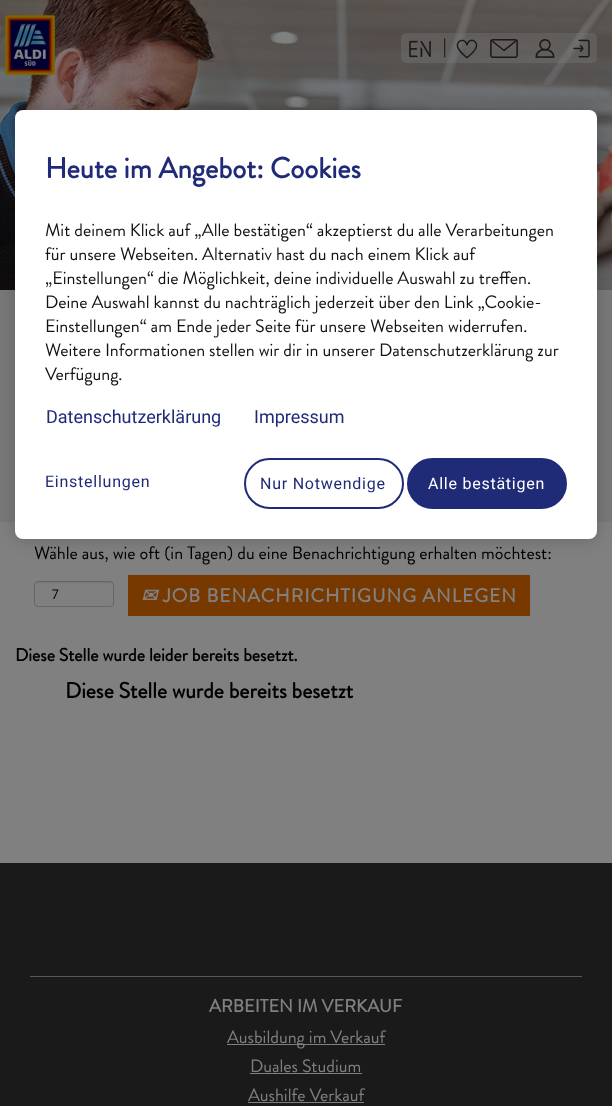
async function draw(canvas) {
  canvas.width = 612
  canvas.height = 1106
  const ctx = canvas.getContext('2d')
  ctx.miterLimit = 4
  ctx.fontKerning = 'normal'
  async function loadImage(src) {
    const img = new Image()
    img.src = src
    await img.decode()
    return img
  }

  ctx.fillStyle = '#fff'
  ctx.fillRect(0, 0, 612, 1106)
  ctx.drawImage(await loadImage('image0.png'), 0, 0, 612, 290)
  ctx.drawImage(await loadImage('image1.png'), 5, 15, 50, 60)
  ctx.fillStyle = '#8080804d'
  ctx.beginPath()
  ctx.roundRect(401, 33, 196, 30, 5)
  ctx.fill()
  ctx.drawImage(await loadImage('image2.png'), 409, 40, 22, 18)
  ctx.font = '18px Brandon Grotesque'
  ctx.fillStyle = '#000'
  ctx.fillText('|', 443, 52)
  ctx.drawImage(await loadImage('image3.png'), 456, 39, 22, 20)
  ctx.drawImage(await loadImage('image4.png'), 490, 39, 28, 19)
  ctx.drawImage(await loadImage('image5.png'), 535, 39, 20, 19)
  ctx.drawImage(await loadImage('image6.png'), 573, 39, 17, 19)
  ctx.fillStyle = '#808080'
  ctx.fillRect(0, 522, 612, 341)
  ctx.fillStyle = '#797979'
  ctx.fillRect(0, 290, 612, 232)
  ctx.fillStyle = '#000'
  ctx.fillText('Wähle aus, wie oft (in Tagen) du eine Benachrichtigung erhalten möchtest:', 34, 559)
  ctx.fillStyle = '#767676'
  ctx.beginPath()
  ctx.moveTo(38, 583)
  ctx.lineTo(110, 583)
  ctx.bezierCurveTo(112, 583, 113, 584, 113, 586)
  ctx.bezierCurveTo(113, 579, 102, 582, 98, 582)
  ctx.lineTo(50, 582)
  ctx.bezierCurveTo(46, 582, 35, 579, 35, 586)
  ctx.bezierCurveTo(35, 584, 36, 583, 38, 583)
  ctx.closePath()
  ctx.fill()
  ctx.beginPath()
  ctx.roundRect(34.5, 581.5, 79, 25, 3.5)
  ctx.strokeStyle = '#666'
  ctx.stroke()
  ctx.font = '14px Brandon Grotesque'
  ctx.fillStyle = '#000'
  ctx.fillText('7', 52, 599)
  ctx.fillStyle = '#773900'
  ctx.fillRect(128, 575, 402, 41)
  ctx.letterSpacing = '1px'
  ctx.font = 'italic bold 19px DejaVu Sans'
  ctx.fillStyle = '#808080'
  ctx.fillText('✉', 141, 602)
  ctx.font = 'bold 19px Brandon Grotesque'
  ctx.fillText('JOB BENACHRICHTIGUNG ANLEGEN', 163, 602)
  ctx.letterSpacing = '0px'
  ctx.font = 'bold 18px Brandon Grotesque'
  ctx.fillStyle = '#000'
  ctx.fillText('Diese Stelle wurde leider bereits besetzt.', 15, 661)
  ctx.font = 'bold 22px Brandon Grotesque'
  ctx.fillText('Diese Stelle wurde bereits besetzt', 65, 698)
  ctx.fillStyle = '#1a1a1a'
  ctx.fillRect(0, 863, 612, 243)
  ctx.fillStyle = '#595959'
  ctx.fillRect(30, 976, 552, 1)
  ctx.font = 'bold 18px Brandon Grotesque'
  ctx.fillStyle = '#808080'
  ctx.fillText('ARBEITEN IM VERKAUF', 209, 1012)
  ctx.fillRect(227, 1044, 158, 1)
  ctx.font = '18px Brandon Grotesque'
  ctx.fillText('Ausbildung im Verkauf', 227, 1043)
  ctx.fillText('Duales Studium', 250, 1072)
  ctx.fillRect(250, 1073, 112, 1)
  ctx.fillText('Aushilfe Verkauf', 248, 1101)
  ctx.fillRect(248, 1102, 116, 1)
  ctx.fillStyle = '#00000033'
  ctx.filter = 'blur(9px)'
  ctx.beginPath()
  ctx.roundRect(15, 110, 582, 429, 8)
  ctx.fill()
  ctx.filter = 'none'
  ctx.fillStyle = '#fff'
  ctx.beginPath()
  ctx.roundRect(15, 110, 582, 429, 8)
  ctx.fill()
  ctx.font = 'bold 29px Brandon Grotesque'
  ctx.fillStyle = '#202b78'
  ctx.fillText('Heute im Angebot: Cookies', 45, 178)
  ctx.font = '18px Brandon Grotesque'
  ctx.fillStyle = '#101316'
  ctx.fillText('Mit deinem Klick auf „Alle bestätigen“ akzeptierst du alle Verarbeitungen', 45, 236)
  ctx.fillText('für unsere Webseiten. Alternativ hast du nach einem Klick auf', 45, 260)
  ctx.fillText('„Einstellungen“ die Möglichkeit, deine individuelle Auswahl zu treffen.', 45, 284)
  ctx.fillText('Deine Auswahl kannst du nachträglich jederzeit über den Link „Cookie-', 45, 308)
  ctx.fillText('Einstellungen“ am Ende jeder Seite für unsere Webseiten widerrufen.', 45, 332)
  ctx.fillText('Weitere Informationen stellen wir dir in unserer Datenschutzerklärung zur', 45, 356)
  ctx.fillText('Verfügung.', 45, 380)
  ctx.font = '18px Roboto'
  ctx.fillStyle = '#202b78'
  ctx.fillText('Datenschutzerklärung', 46, 423)
  ctx.fillText('Impressum', 254, 423)
  ctx.letterSpacing = '0.75px'
  ctx.font = '16px Roboto'
  ctx.fillText('Einstellungen', 45, 487)
  ctx.beginPath()
  ctx.roundRect(245, 459, 158, 49, 24.5)
  ctx.strokeStyle = '#202b78'
  ctx.lineWidth = 2
  ctx.stroke()
  ctx.fillText('Nur Notwendige', 260, 489)
  ctx.beginPath()
  ctx.roundRect(408, 459, 158, 49, 24.5)
  ctx.fill()
  ctx.stroke()
  ctx.fillStyle = '#fff'
  ctx.fillText('Alle bestätigen', 428, 489)
}

draw(document.querySelector('canvas'))
